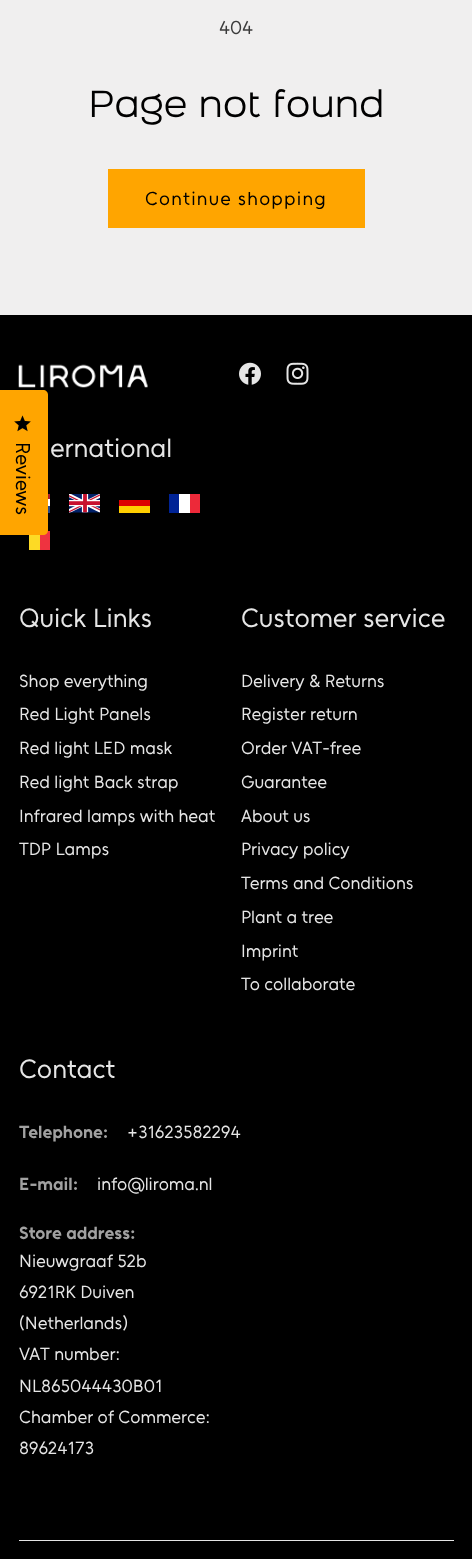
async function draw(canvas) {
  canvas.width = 472
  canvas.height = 1559
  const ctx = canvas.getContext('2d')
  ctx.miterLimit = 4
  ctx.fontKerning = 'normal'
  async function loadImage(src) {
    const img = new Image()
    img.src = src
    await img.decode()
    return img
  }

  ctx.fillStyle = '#f0efef'
  ctx.fillRect(0, 0, 472, 1559)
  ctx.font = '18.75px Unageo'
  ctx.fillStyle = '#3c3c3c'
  ctx.fillText('404', 219, 34)
  ctx.font = '37.5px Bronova'
  ctx.fillStyle = '#000'
  ctx.fillText('Page not found', 89, 117)
  ctx.fillStyle = '#ffa500'
  ctx.fillRect(108, 169, 257, 59)
  ctx.letterSpacing = '1.25px'
  ctx.font = '18.75px Unageo'
  ctx.fillStyle = '#000'
  ctx.fillText('Continue shopping', 145, 205)
  ctx.fillRect(0, 315, 472, 1244)
  ctx.drawImage(await loadImage('image0.png'), 239, 362, 22, 23)
  ctx.drawImage(await loadImage('image1.png'), 286, 362, 23, 23)
  ctx.drawImage(await loadImage('image2.png'), 18, 364, 130, 24)
  ctx.letterSpacing = '0px'
  ctx.font = '26.25px Unageo'
  ctx.fillStyle = '#e6e6e6'
  ctx.fillText('ernational', 50, 457)
  ctx.fillStyle = '#ae1c28'
  ctx.fillRect(48, 494, 2, 5)
  ctx.fillStyle = '#fff'
  ctx.fillRect(48, 499, 2, 7)
  ctx.fillStyle = '#21468b'
  ctx.fillRect(48, 506, 2, 7)
  ctx.drawImage(await loadImage('image3.png'), 69, 494, 31, 19)
  ctx.fillStyle = '#d00'
  ctx.fillRect(119, 500, 31, 6)
  ctx.fillStyle = '#ffce00'
  ctx.fillRect(119, 506, 31, 7)
  ctx.fillStyle = '#002395'
  ctx.fillRect(169, 494, 10, 19)
  ctx.fillStyle = '#fff'
  ctx.fillRect(179, 494, 11, 19)
  ctx.fillStyle = '#ed2939'
  ctx.fillRect(190, 494, 10, 19)
  ctx.fillStyle = '#fdda25'
  ctx.fillRect(29, 535, 11, 15)
  ctx.fillStyle = '#ef3340'
  ctx.fillRect(40, 531, 10, 19)
  ctx.fillStyle = '#e6e6e6'
  ctx.fillText('Quick Links', 19, 627)
  ctx.font = '17.5px Unageo'
  ctx.fillText('Shop everything', 19, 687)
  ctx.fillText('Red Light Panels', 19, 720)
  ctx.fillText('Red light LED mask', 19, 754)
  ctx.fillText('Red light Back strap', 19, 788)
  ctx.fillText('Infrared lamps with heat', 19, 822)
  ctx.fillText('TDP Lamps', 19, 855)
  ctx.font = '26.25px Unageo'
  ctx.fillText('Customer service', 241, 627)
  ctx.font = '17.5px Unageo'
  ctx.fillText('Delivery & Returns', 241, 687)
  ctx.fillText('Register return', 241, 720)
  ctx.fillText('Order VAT-free', 241, 754)
  ctx.fillText('Guarantee', 241, 788)
  ctx.fillText('About us', 241, 822)
  ctx.fillText('Privacy policy', 241, 855)
  ctx.fillText('Terms and Conditions', 241, 889)
  ctx.fillText('Plant a tree', 241, 923)
  ctx.fillText('Imprint', 241, 957)
  ctx.fillText('To collaborate', 241, 990)
  ctx.font = '26.25px Unageo'
  ctx.fillText('Contact', 19, 1078)
  ctx.font = 'bold 17.5px Unageo'
  ctx.fillStyle = '#a1a1a1'
  ctx.fillText('Telephone:', 19, 1138)
  ctx.font = '17.5px Unageo'
  ctx.fillStyle = '#e6e6e6'
  ctx.fillText('+31623582294', 127, 1138)
  ctx.font = 'bold 17.5px Unageo'
  ctx.fillStyle = '#a1a1a1'
  ctx.fillText('E-mail:', 19, 1190)
  ctx.font = '17.5px Unageo'
  ctx.fillStyle = '#e6e6e6'
  ctx.fillText('info@liroma.nl', 97, 1190)
  ctx.font = 'bold 17.5px Unageo'
  ctx.fillStyle = '#a1a1a1'
  ctx.fillText('Store address:', 19, 1239)
  ctx.font = '17.5px Unageo'
  ctx.fillStyle = '#e6e6e6'
  ctx.fillText('Nieuwgraaf 52b', 19, 1267)
  ctx.fillText('6921RK Duiven', 19, 1298)
  ctx.fillText('(Netherlands)', 19, 1329)
  ctx.fillText('VAT number:', 19, 1360)
  ctx.fillText('NL865044430B01', 19, 1392)
  ctx.fillText('Chamber of Commerce:', 19, 1423)
  ctx.fillText('89624173', 19, 1454)
  ctx.fillRect(19, 1540, 435, 1)
  ctx.fillStyle = '#ffa500'
  ctx.beginPath()
  ctx.moveTo(-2, 390)
  ctx.lineTo(43, 390)
  ctx.bezierCurveTo(46, 390, 48, 392, 48, 395)
  ctx.lineTo(48, 530)
  ctx.bezierCurveTo(48, 533, 46, 535, 43, 535)
  ctx.lineTo(-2, 535)
  ctx.closePath()
  ctx.fill()
  ctx.drawImage(await loadImage('image4.png'), 14, 415, 17, 17)
  ctx.font = '20px Unageo'
  ctx.fillStyle = '#000'
  ctx.save()
  ctx.translate(16, 442)
  ctx.rotate(90.1 * Math.PI / 180)
  ctx.fillText('Reviews', 0, 0)
  ctx.restore()
}

draw(document.querySelector('canvas'))
